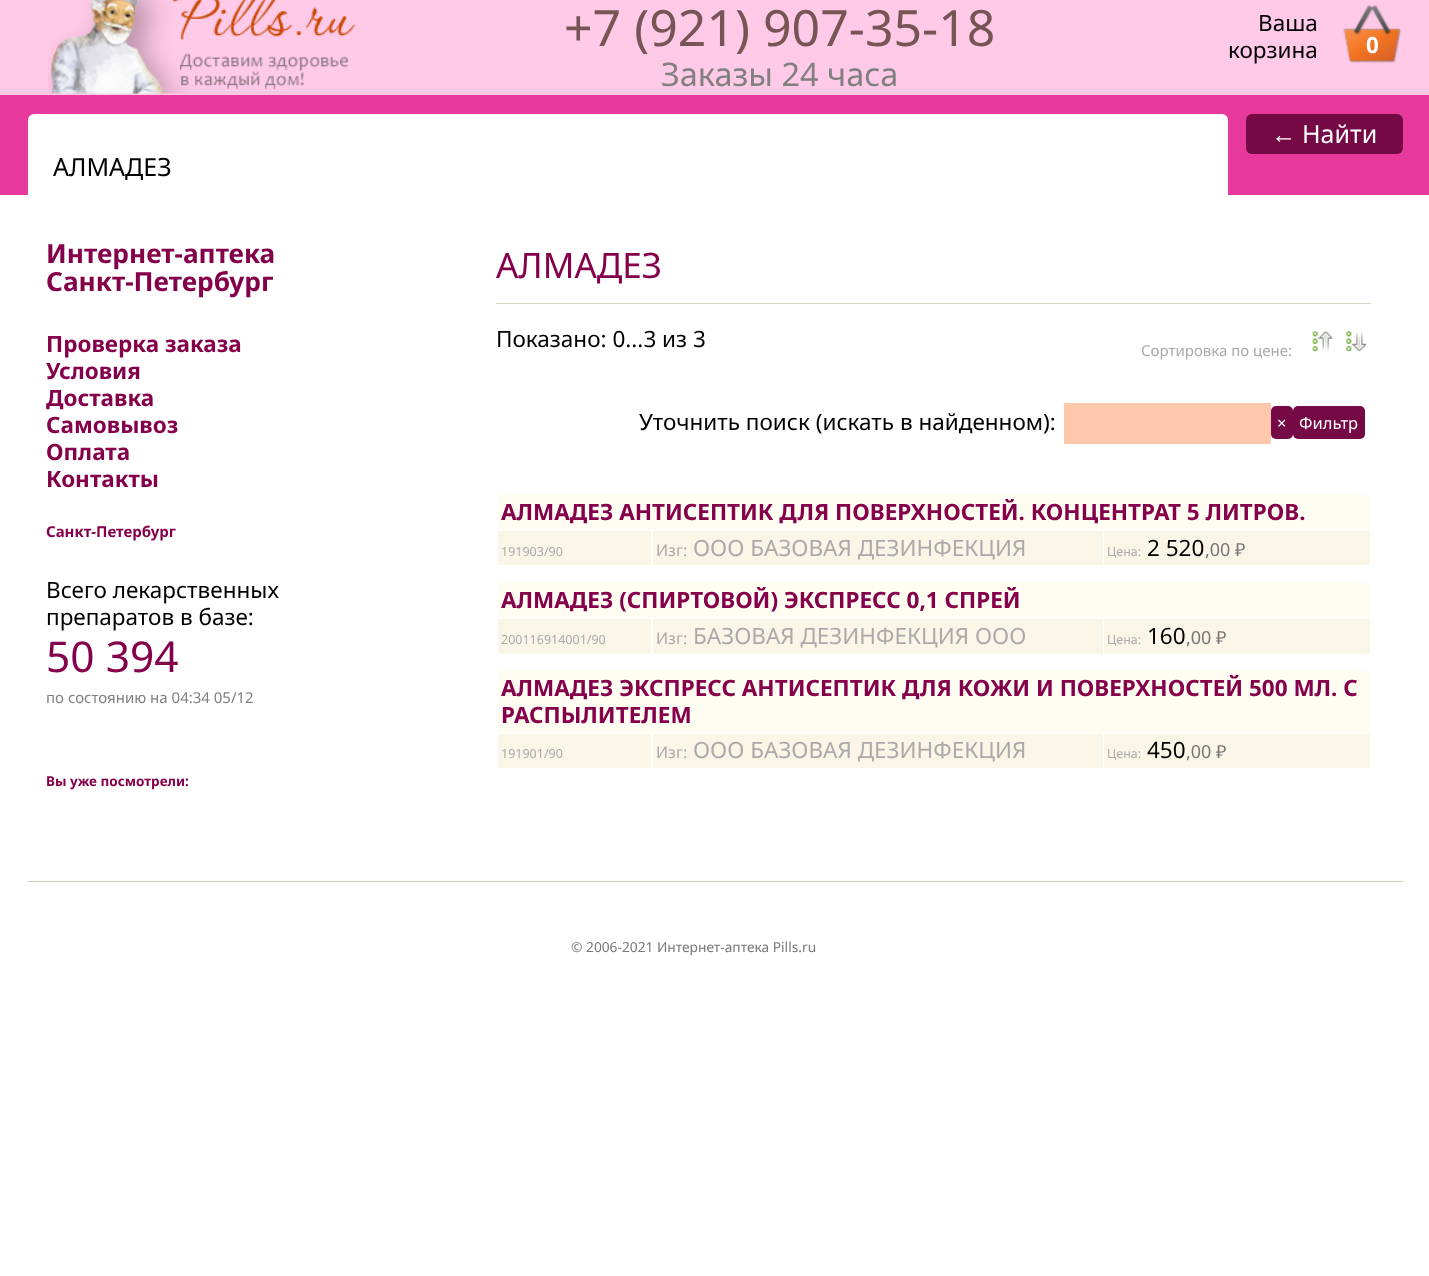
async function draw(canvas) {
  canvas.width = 1429
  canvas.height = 1276
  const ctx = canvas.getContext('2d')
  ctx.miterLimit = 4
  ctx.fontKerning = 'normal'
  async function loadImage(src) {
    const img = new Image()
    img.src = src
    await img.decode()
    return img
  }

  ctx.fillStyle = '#fff'
  ctx.fillRect(0, 0, 1429, 1276)
  ctx.fillStyle = '#ffc9e8'
  ctx.fillRect(0, 0, 1429, 95)
  ctx.drawImage(await loadImage('image0.png'), 48, 0, 308, 94)
  ctx.font = '50px Noto Sans'
  ctx.fillStyle = '#755'
  ctx.fillText('+7 (921) 907-35-18', 564, 46)
  ctx.font = '32.5px Noto Sans'
  ctx.fillStyle = '#808080'
  ctx.fillText('Заказы 24 часа', 661, 86)
  ctx.font = '22.5px Noto Sans'
  ctx.fillStyle = '#000'
  ctx.fillText('Ваша', 1258, 31)
  ctx.fillText('корзина', 1228, 58)
  ctx.drawImage(await loadImage('image1.png'), 1343, 5, 59, 58)
  ctx.font = 'bold 22.5px Noto Sans'
  ctx.fillStyle = '#fff'
  ctx.fillText('0', 1366, 53)
  ctx.fillStyle = '#e6399b'
  ctx.fillRect(0, 95, 1429, 100)
  ctx.fillStyle = '#740945'
  ctx.beginPath()
  ctx.roundRect(1246, 114, 157, 40, 6)
  ctx.fill()
  ctx.font = '25px Liberation Serif'
  ctx.fillStyle = '#fff'
  ctx.fillText('←', 1271, 143)
  ctx.font = '25px Noto Sans'
  ctx.fillText('Найти', 1302, 143)
  ctx.beginPath()
  ctx.roundRect(28, 114, 1200, 105, 6)
  ctx.fill()
  ctx.fillStyle = '#000'
  ctx.fillText('АЛМАДЕЗ', 53, 176)
  ctx.font = 'bold 26.25px Noto Sans'
  ctx.fillStyle = '#85004b'
  ctx.fillText('Интернет-аптека', 46, 263)
  ctx.fillText('Санкт-Петербург', 46, 291)
  ctx.font = 'bold 22.5px Noto Sans'
  ctx.fillText('Проверка заказа', 46, 352)
  ctx.fillText('Условия', 46, 379)
  ctx.fillText('Доставка', 46, 406)
  ctx.fillText('Самовывоз', 46, 433)
  ctx.fillText('Оплата', 46, 460)
  ctx.fillText('Контакты', 46, 487)
  ctx.font = 'bold 15px Noto Sans'
  ctx.fillText('Санкт-Петербург', 46, 537)
  ctx.font = '22.5px Noto Sans'
  ctx.fillStyle = '#000'
  ctx.fillText('Всего лекарственных', 46, 598)
  ctx.fillText('препаратов в базе:', 46, 625)
  ctx.font = '42.5px Noto Sans'
  ctx.fillStyle = '#85004b'
  ctx.fillText('50 394', 46, 672)
  ctx.font = '15px Noto Sans'
  ctx.fillStyle = '#808080'
  ctx.fillText('по состоянию на 04:34 05/12', 46, 703)
  ctx.font = 'bold 13.5px Noto Sans'
  ctx.fillStyle = '#85004b'
  ctx.fillText('Вы уже посмотрели:', 46, 786)
  ctx.font = '35px Noto Sans'
  ctx.fillText('АЛМАДЕЗ', 496, 278)
  ctx.fillStyle = '#d6d3c9'
  ctx.fillRect(496, 303, 875, 1)
  ctx.font = '22.5px Noto Sans'
  ctx.fillStyle = '#000'
  ctx.fillText('Показано: 0...3 из 3', 496, 347)
  ctx.font = '15px Noto Sans'
  ctx.fillStyle = '#aaa'
  ctx.fillText('Сортировка по цене:', 1141, 356)
  ctx.drawImage(await loadImage('image2.png'), 1312, 331, 21, 21)
  ctx.drawImage(await loadImage('image3.png'), 1346, 331, 21, 21)
  ctx.font = '22.5px Noto Sans'
  ctx.fillStyle = '#000'
  ctx.fillText('Уточнить поиск (искать в найденном):', 639, 430)
  ctx.fillStyle = '#ffc8ac'
  ctx.fillRect(1064, 403, 207, 41)
  ctx.fillStyle = '#740945'
  ctx.beginPath()
  ctx.roundRect(1271, 406, 22, 33, 5)
  ctx.fill()
  ctx.font = '16.5px Noto Sans'
  ctx.fillStyle = '#fff'
  ctx.fillText('×', 1277, 429)
  ctx.fillStyle = '#740945'
  ctx.beginPath()
  ctx.roundRect(1293, 406, 72, 33, 5)
  ctx.fill()
  ctx.fillStyle = '#fff'
  ctx.fillText('Фильтр', 1299, 429)
  ctx.fillStyle = '#fffcf1'
  ctx.fillRect(498, 495, 872, 35)
  ctx.font = 'bold 22.5px Noto Sans'
  ctx.fillStyle = '#85004b'
  ctx.fillText('АЛМАДЕЗ АНТИСЕПТИК ДЛЯ ПОВЕРХНОСТЕЙ. КОНЦЕНТРАТ 5 ЛИТРОВ.', 501, 520)
  ctx.fillStyle = '#faf6e7'
  ctx.fillRect(498, 531, 153, 34)
  ctx.font = '12.5px Noto Sans'
  ctx.fillStyle = '#aaa'
  ctx.fillText('191903/90', 501, 556)
  ctx.fillStyle = '#faf6e7'
  ctx.fillRect(653, 531, 450, 34)
  ctx.font = '16px Noto Sans'
  ctx.fillStyle = '#aaa'
  ctx.fillText('Изг:', 656, 556)
  ctx.font = '22.5px Noto Sans'
  ctx.fillText('ООО БАЗОВАЯ ДЕЗИНФЕКЦИЯ', 693, 556)
  ctx.fillStyle = '#faf6e7'
  ctx.fillRect(1104, 531, 266, 34)
  ctx.font = '12.5px Noto Sans'
  ctx.fillStyle = '#aaa'
  ctx.fillText('Цена:', 1107, 556)
  ctx.font = '22.5px Noto Sans'
  ctx.fillStyle = '#000'
  ctx.fillText('2 520', 1147, 556)
  ctx.font = '18px Noto Sans'
  ctx.fillStyle = '#777'
  ctx.fillText(',00 ₽', 1205, 556)
  ctx.fillStyle = '#fffcf1'
  ctx.fillRect(498, 583, 872, 35)
  ctx.font = 'bold 22.5px Noto Sans'
  ctx.fillStyle = '#85004b'
  ctx.fillText('АЛМАДЕЗ (СПИРТОВОЙ) ЭКСПРЕСС 0,1 СПРЕЙ', 501, 608)
  ctx.fillStyle = '#faf6e7'
  ctx.fillRect(498, 619, 153, 35)
  ctx.font = '12.5px Noto Sans'
  ctx.fillStyle = '#aaa'
  ctx.fillText('200116914001/90', 501, 644)
  ctx.fillStyle = '#faf6e7'
  ctx.fillRect(653, 619, 450, 35)
  ctx.font = '16px Noto Sans'
  ctx.fillStyle = '#aaa'
  ctx.fillText('Изг:', 656, 644)
  ctx.font = '22.5px Noto Sans'
  ctx.fillText('БАЗОВАЯ ДЕЗИНФЕКЦИЯ ООО', 693, 644)
  ctx.fillStyle = '#faf6e7'
  ctx.fillRect(1104, 619, 266, 35)
  ctx.font = '12.5px Noto Sans'
  ctx.fillStyle = '#aaa'
  ctx.fillText('Цена:', 1107, 644)
  ctx.font = '22.5px Noto Sans'
  ctx.fillStyle = '#000'
  ctx.fillText('160', 1147, 644)
  ctx.font = '18px Noto Sans'
  ctx.fillStyle = '#777'
  ctx.fillText(',00 ₽', 1186, 644)
  ctx.fillStyle = '#fffcf1'
  ctx.fillRect(498, 671, 872, 62)
  ctx.font = 'bold 22.5px Noto Sans'
  ctx.fillStyle = '#85004b'
  ctx.fillText('АЛМАДЕЗ ЭКСПРЕСС АНТИСЕПТИК ДЛЯ КОЖИ И ПОВЕРХНОСТЕЙ 500 МЛ. С', 501, 696)
  ctx.fillText('РАСПЫЛИТЕЛЕМ', 501, 723)
  ctx.fillStyle = '#faf6e7'
  ctx.fillRect(498, 734, 153, 34)
  ctx.font = '12.5px Noto Sans'
  ctx.fillStyle = '#aaa'
  ctx.fillText('191901/90', 501, 758)
  ctx.fillStyle = '#faf6e7'
  ctx.fillRect(653, 734, 450, 34)
  ctx.font = '16px Noto Sans'
  ctx.fillStyle = '#aaa'
  ctx.fillText('Изг:', 656, 758)
  ctx.font = '22.5px Noto Sans'
  ctx.fillText('ООО БАЗОВАЯ ДЕЗИНФЕКЦИЯ', 693, 758)
  ctx.fillStyle = '#faf6e7'
  ctx.fillRect(1104, 734, 266, 34)
  ctx.font = '12.5px Noto Sans'
  ctx.fillStyle = '#aaa'
  ctx.fillText('Цена:', 1107, 758)
  ctx.font = '22.5px Noto Sans'
  ctx.fillStyle = '#000'
  ctx.fillText('450', 1147, 758)
  ctx.font = '18px Noto Sans'
  ctx.fillStyle = '#777'
  ctx.fillText(',00 ₽', 1186, 758)
  ctx.fillStyle = '#cec9b7'
  ctx.fillRect(28, 881, 1375, 1)
  ctx.font = '13.75px Noto Sans'
  ctx.fillStyle = '#777'
  ctx.fillText('© 2006-2021 Интернет-аптека Pills.ru', 571, 952)
}

draw(document.querySelector('canvas'))
